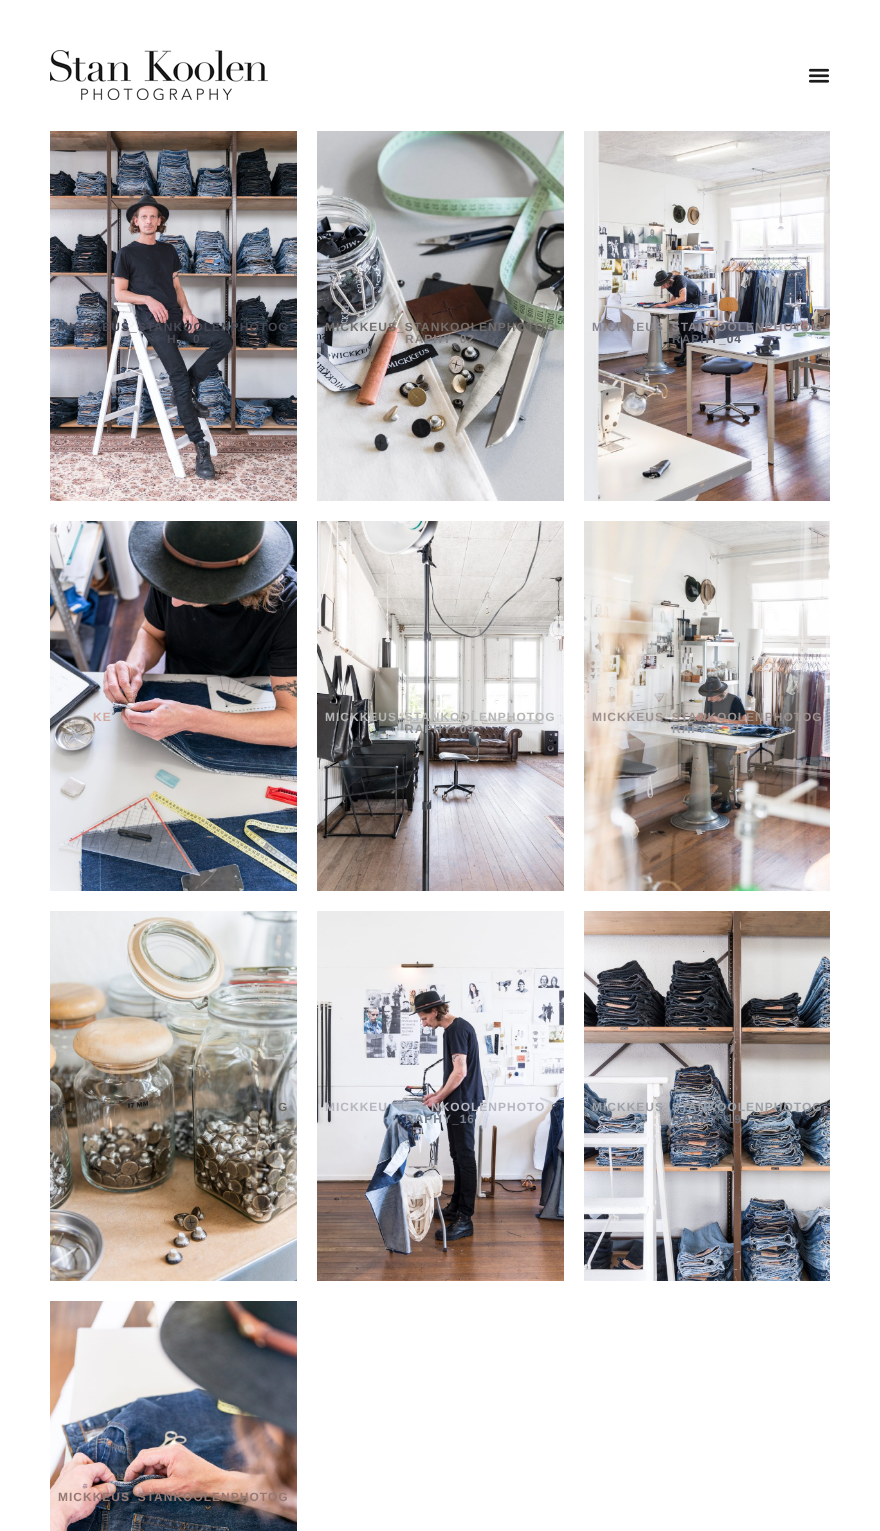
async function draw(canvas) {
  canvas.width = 880
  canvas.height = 1531
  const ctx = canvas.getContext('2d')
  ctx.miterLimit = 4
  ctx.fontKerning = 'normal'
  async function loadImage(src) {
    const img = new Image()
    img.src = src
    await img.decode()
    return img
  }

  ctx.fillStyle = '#fff'
  ctx.fillRect(0, 0, 880, 1531)
  ctx.drawImage(await loadImage('image0.png'), 50, 50, 218, 50)
  ctx.drawImage(await loadImage('image1.png'), 808, 68, 22, 15)
  ctx.drawImage(await loadImage('image2.png'), 50, 131, 247, 370)
  ctx.letterSpacing = '1px'
  ctx.font = 'bold 12px Liberation Sans'
  ctx.fillStyle = '#484954'
  ctx.fillText('MICKKEUS_STANKOOLENPHOTOG', 58, 331)
  ctx.fillText('H', 167, 343)
  ctx.fillText('0', 193, 343)
  ctx.drawImage(await loadImage('image3.png'), 317, 131, 247, 370)
  ctx.fillStyle = '#746f6c'
  ctx.fillText('MICKKEUS_STANKOOLENPHOTOG', 325, 331)
  ctx.fillStyle = '#857f7f'
  ctx.fillText('RAPHY_02', 405, 343)
  ctx.drawImage(await loadImage('image4.png'), 584, 131, 246, 370)
  ctx.fillStyle = '#8a8790'
  ctx.fillText('MICKKEUS_STANKOOLENPHOTOG', 592, 331)
  ctx.fillStyle = '#5c5e68'
  ctx.fillText('RAPHY_04', 672, 343)
  ctx.drawImage(await loadImage('image5.png'), 50, 521, 247, 370)
  ctx.fillStyle = '#d1a89d'
  ctx.fillText('KE', 93, 721)
  ctx.fillText('_', 130, 721)
  ctx.fillStyle = '#c98f87'
  ctx.fillText('_', 185, 733)
  ctx.drawImage(await loadImage('image6.png'), 317, 521, 247, 370)
  ctx.fillStyle = '#b5b6b4'
  ctx.fillText('MICKKEUS_STANKOOLENPHOTOG', 325, 721)
  ctx.fillStyle = '#949396'
  ctx.fillText('RAPHY_09', 405, 733)
  ctx.drawImage(await loadImage('image7.png'), 584, 521, 246, 370)
  ctx.fillStyle = '#9e928f'
  ctx.fillText('MICKKEUS_STANKOOLENPHOTOG', 592, 721)
  ctx.fillStyle = '#9ca1a8'
  ctx.fillText('RAPHY_11', 672, 733)
  ctx.drawImage(await loadImage('image8.png'), 50, 911, 247, 370)
  ctx.fillStyle = '#6c655b'
  ctx.fillText('I', 69, 1111)
  ctx.fillText('G', 278, 1111)
  ctx.drawImage(await loadImage('image9.png'), 317, 911, 247, 370)
  ctx.fillStyle = '#b5b6bf'
  ctx.fillText('MICKKEU', 325, 1111)
  ctx.fillText('NKOOLENPHOTO', 431, 1111)
  ctx.fillStyle = '#79808d'
  ctx.fillText('RAPHY_16', 405, 1123)
  ctx.drawImage(await loadImage('image10.png'), 584, 911, 246, 370)
  ctx.fillStyle = '#9ca1a8'
  ctx.fillText('MICKKEUS_STANKOOLENPHOTOG', 592, 1111)
  ctx.fillStyle = '#6b6f7a'
  ctx.fillText('RAPHY_19', 672, 1123)
  ctx.drawImage(await loadImage('image11.png'), 50, 1301, 247, 230)
  ctx.fillStyle = '#947874'
  ctx.fillText('MICKKEUS_STANKOOLENPHOTOG', 58, 1501)
}

draw(document.querySelector('canvas'))
